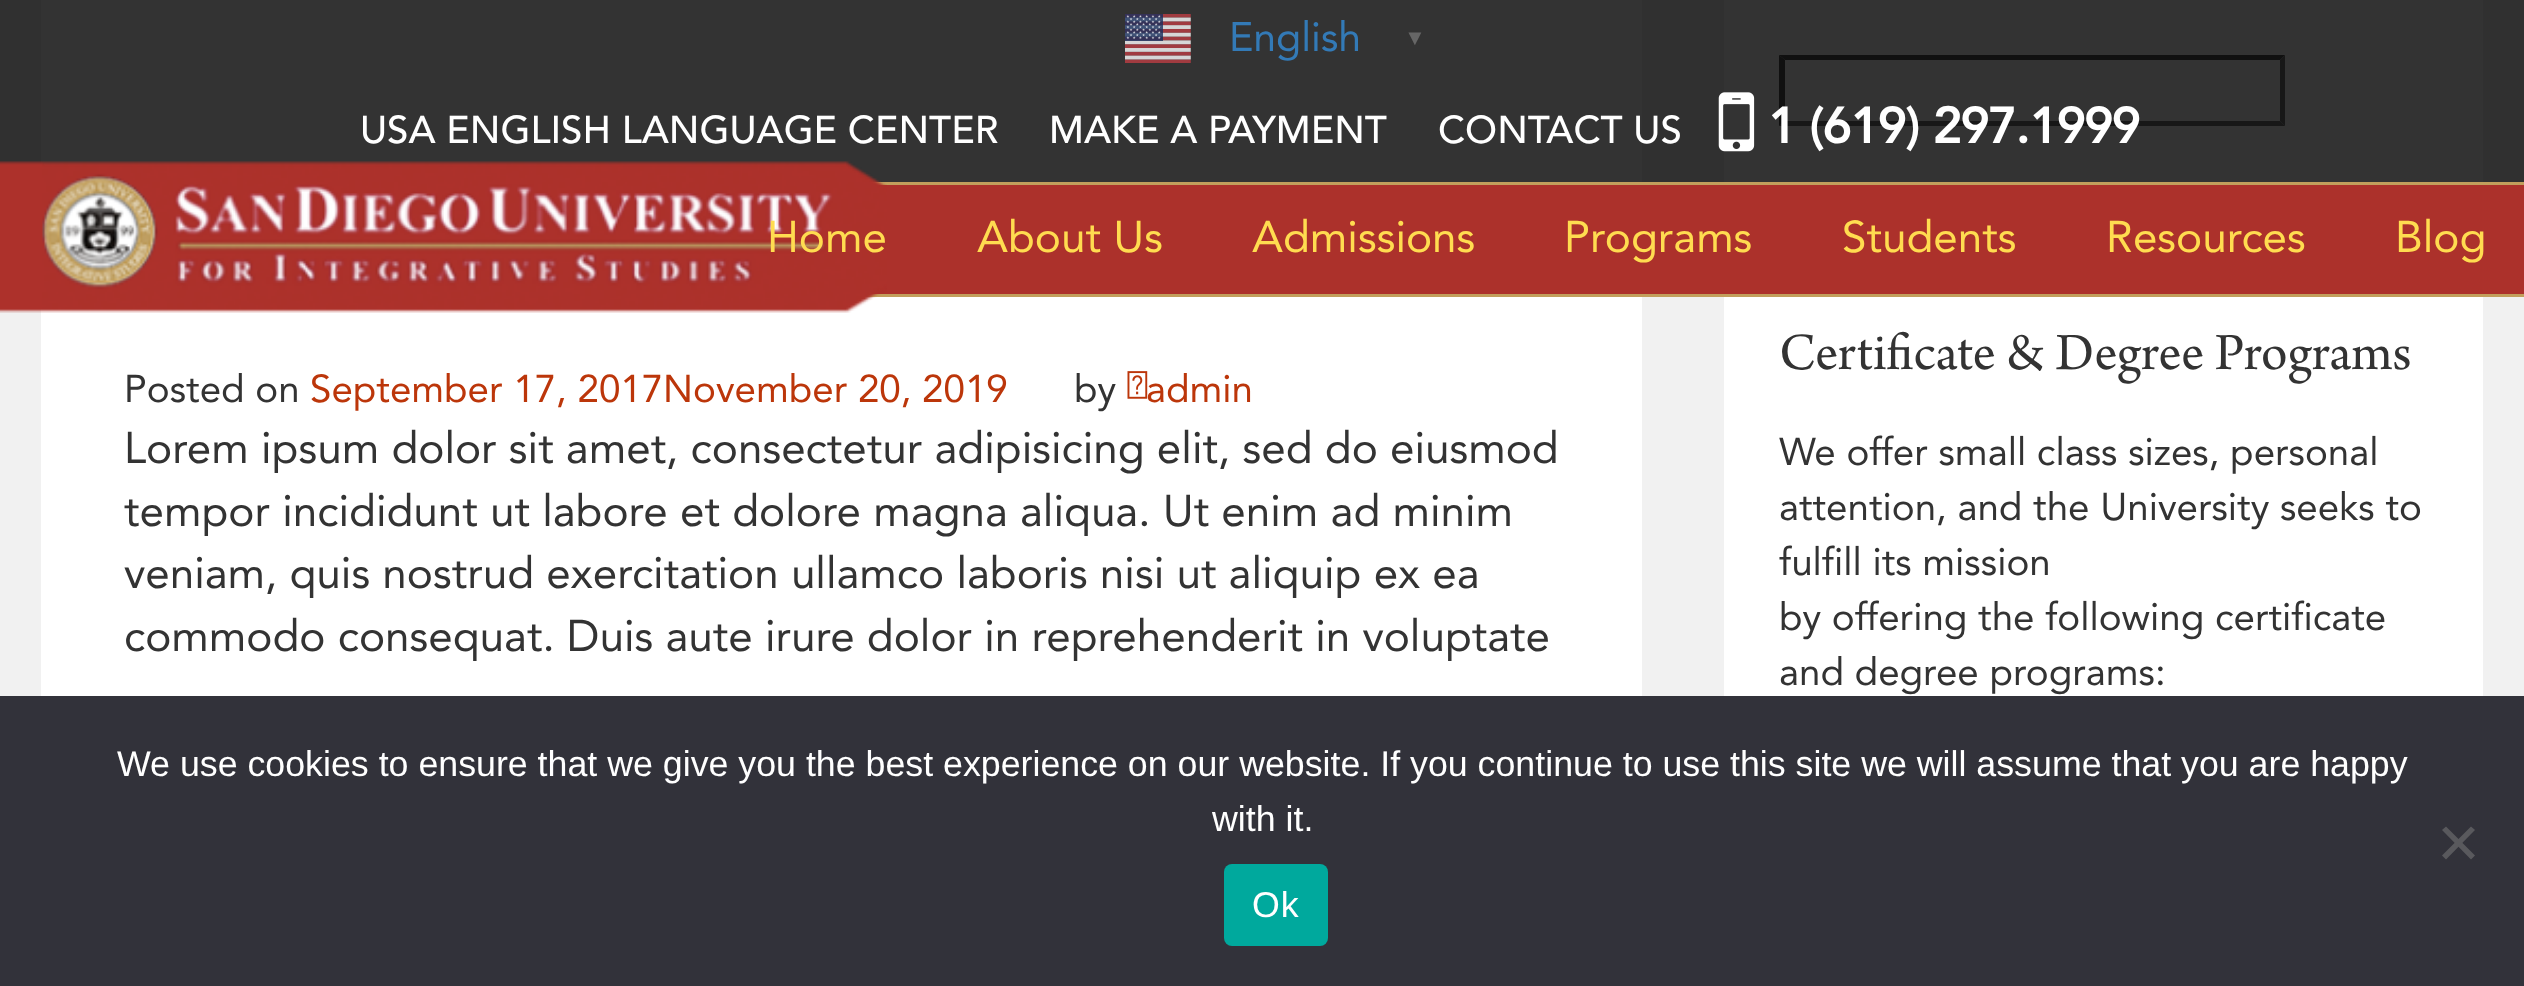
async function draw(canvas) {
  canvas.width = 2524
  canvas.height = 986
  const ctx = canvas.getContext('2d')
  ctx.miterLimit = 4
  ctx.fontKerning = 'normal'
  async function loadImage(src) {
    const img = new Image()
    img.src = src
    await img.decode()
    return img
  }

  ctx.fillStyle = '#f1f1f1'
  ctx.fillRect(0, 0, 2524, 986)
  ctx.fillStyle = '#fff'
  ctx.fillRect(41, 0, 1601, 696)
  ctx.fillRect(1724, 0, 759, 182)
  ctx.fillStyle = '#4f4f4f'
  ctx.beginPath()
  ctx.moveTo(1779, 55)
  ctx.lineTo(2285, 55)
  ctx.lineTo(2280, 60)
  ctx.lineTo(1785, 60)
  ctx.closePath()
  ctx.fill()
  ctx.fillStyle = '#767676'
  ctx.beginPath()
  ctx.moveTo(2285, 55)
  ctx.lineTo(2285, 126)
  ctx.lineTo(2280, 121)
  ctx.lineTo(2280, 60)
  ctx.closePath()
  ctx.fill()
  ctx.beginPath()
  ctx.moveTo(2285, 126)
  ctx.lineTo(1779, 126)
  ctx.lineTo(1785, 121)
  ctx.lineTo(2280, 121)
  ctx.closePath()
  ctx.fill()
  ctx.fillStyle = '#4f4f4f'
  ctx.beginPath()
  ctx.moveTo(1779, 126)
  ctx.lineTo(1779, 55)
  ctx.lineTo(1785, 60)
  ctx.lineTo(1785, 121)
  ctx.closePath()
  ctx.fill()
  ctx.fillStyle = '#000000cc'
  ctx.fillRect(0, 0, 2524, 182)
  ctx.drawImage(await loadImage('image0.png'), 1125, 14, 66, 49)
  ctx.font = '41px Avenir'
  ctx.fillStyle = '#337ab7'
  ctx.fillText('English', 1229, 51)
  ctx.font = 'bold 22px Liberation Serif'
  ctx.fillStyle = '#666'
  ctx.fillText('▼', 1404, 45)
  ctx.font = '500 38.5px Avenir'
  ctx.fillStyle = '#fff'
  ctx.fillText('USA ENGLISH LANGUAGE CENTER', 360, 143)
  ctx.fillText('MAKE A PAYMENT', 1049, 143)
  ctx.fillText('CONTACT US', 1438, 143)
  ctx.drawImage(await loadImage('image1.png'), 1718, 92, 37, 60)
  ctx.font = 'bold 49.5px Avenir'
  ctx.fillText('1 (619) 297.1999', 1768, 143)
  ctx.fillStyle = '#ac312b'
  ctx.fillRect(871, 185, 1653, 109)
  ctx.fillStyle = '#c29f5c'
  ctx.fillRect(871, 182, 1653, 3)
  ctx.fillRect(865, 294, 1659, 3)
  ctx.drawImage(await loadImage('image2.png'), 0, 161, 887, 152)
  ctx.font = '44px Avenir'
  ctx.fillStyle = '#ffdc50'
  ctx.fillText('Home', 767, 252)
  ctx.fillText('About Us', 977, 252)
  ctx.fillText('Admissions', 1252, 252)
  ctx.fillText('Programs', 1564, 252)
  ctx.fillText('Students', 1842, 252)
  ctx.fillText('Resources', 2106, 252)
  ctx.fillText('Blog', 2395, 252)
  ctx.font = '38.5px Avenir'
  ctx.fillStyle = '#333'
  ctx.fillText('Posted on', 124, 402)
  ctx.fillStyle = '#bc360a'
  ctx.fillText('September 17, 2017November 20, 2019', 310, 402)
  ctx.fillStyle = '#333'
  ctx.fillText('by', 1074, 402)
  ctx.fillStyle = '#bc360a'
  ctx.fillText('admin', 1146, 402)
  ctx.drawImage(await loadImage('image3.png'), 1127, 371, 21, 28)
  ctx.font = '44px Avenir'
  ctx.fillStyle = '#333'
  ctx.fillText('Lorem ipsum dolor sit amet, consectetur adipisicing elit, sed do eiusmod', 124, 463)
  ctx.fillText('tempor incididunt ut labore et dolore magna aliqua. Ut enim ad minim', 124, 526)
  ctx.fillText('veniam, quis nostrud exercitation ullamco laboris nisi ut aliquip ex ea', 124, 588)
  ctx.fillText('commodo consequat. Duis aute irure dolor in reprehenderit in voluptate', 124, 651)
  ctx.fillStyle = '#fff'
  ctx.fillRect(1724, 297, 759, 399)
  ctx.font = '55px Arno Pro'
  ctx.fillStyle = '#333'
  ctx.fillText('Certificate & Degree Programs', 1779, 369)
  ctx.font = '38.5px Avenir'
  ctx.fillText('We offer small class sizes, personal', 1779, 465)
  ctx.fillText('attention, and the University seeks to', 1779, 520)
  ctx.fillText('fulfill its mission', 1779, 575)
  ctx.fillText('by offering the following certificate', 1779, 630)
  ctx.fillText('and degree programs:', 1779, 685)
  ctx.fillStyle = '#32323a'
  ctx.fillRect(0, 696, 2524, 290)
  ctx.font = '35.75px Liberation Sans'
  ctx.fillStyle = '#fff'
  ctx.fillText('We use cookies to ensure that we give you the best experience on our website. If you continue to use this site we will assume that you are happy', 117, 776)
  ctx.fillText('with it.', 1212, 831)
  ctx.fillStyle = '#59595d'
  ctx.beginPath()
  ctx.moveTo(2471, 826.5)
  ctx.lineTo(2475, 830)
  ctx.lineTo(2446, 859.5)
  ctx.lineTo(2442, 855.5)
  ctx.closePath()
  ctx.fill()
  ctx.beginPath()
  ctx.moveTo(2442, 830)
  ctx.lineTo(2446, 826.5)
  ctx.lineTo(2475, 855.5)
  ctx.lineTo(2471, 859.5)
  ctx.closePath()
  ctx.fill()
  ctx.fillStyle = '#00a99d'
  ctx.beginPath()
  ctx.roundRect(1224, 864, 104, 82, 8)
  ctx.fill()
  ctx.letterSpacing = '1px'
  ctx.fillStyle = '#fff'
  ctx.fillText('Ok', 1252, 917)
}

draw(document.querySelector('canvas'))
